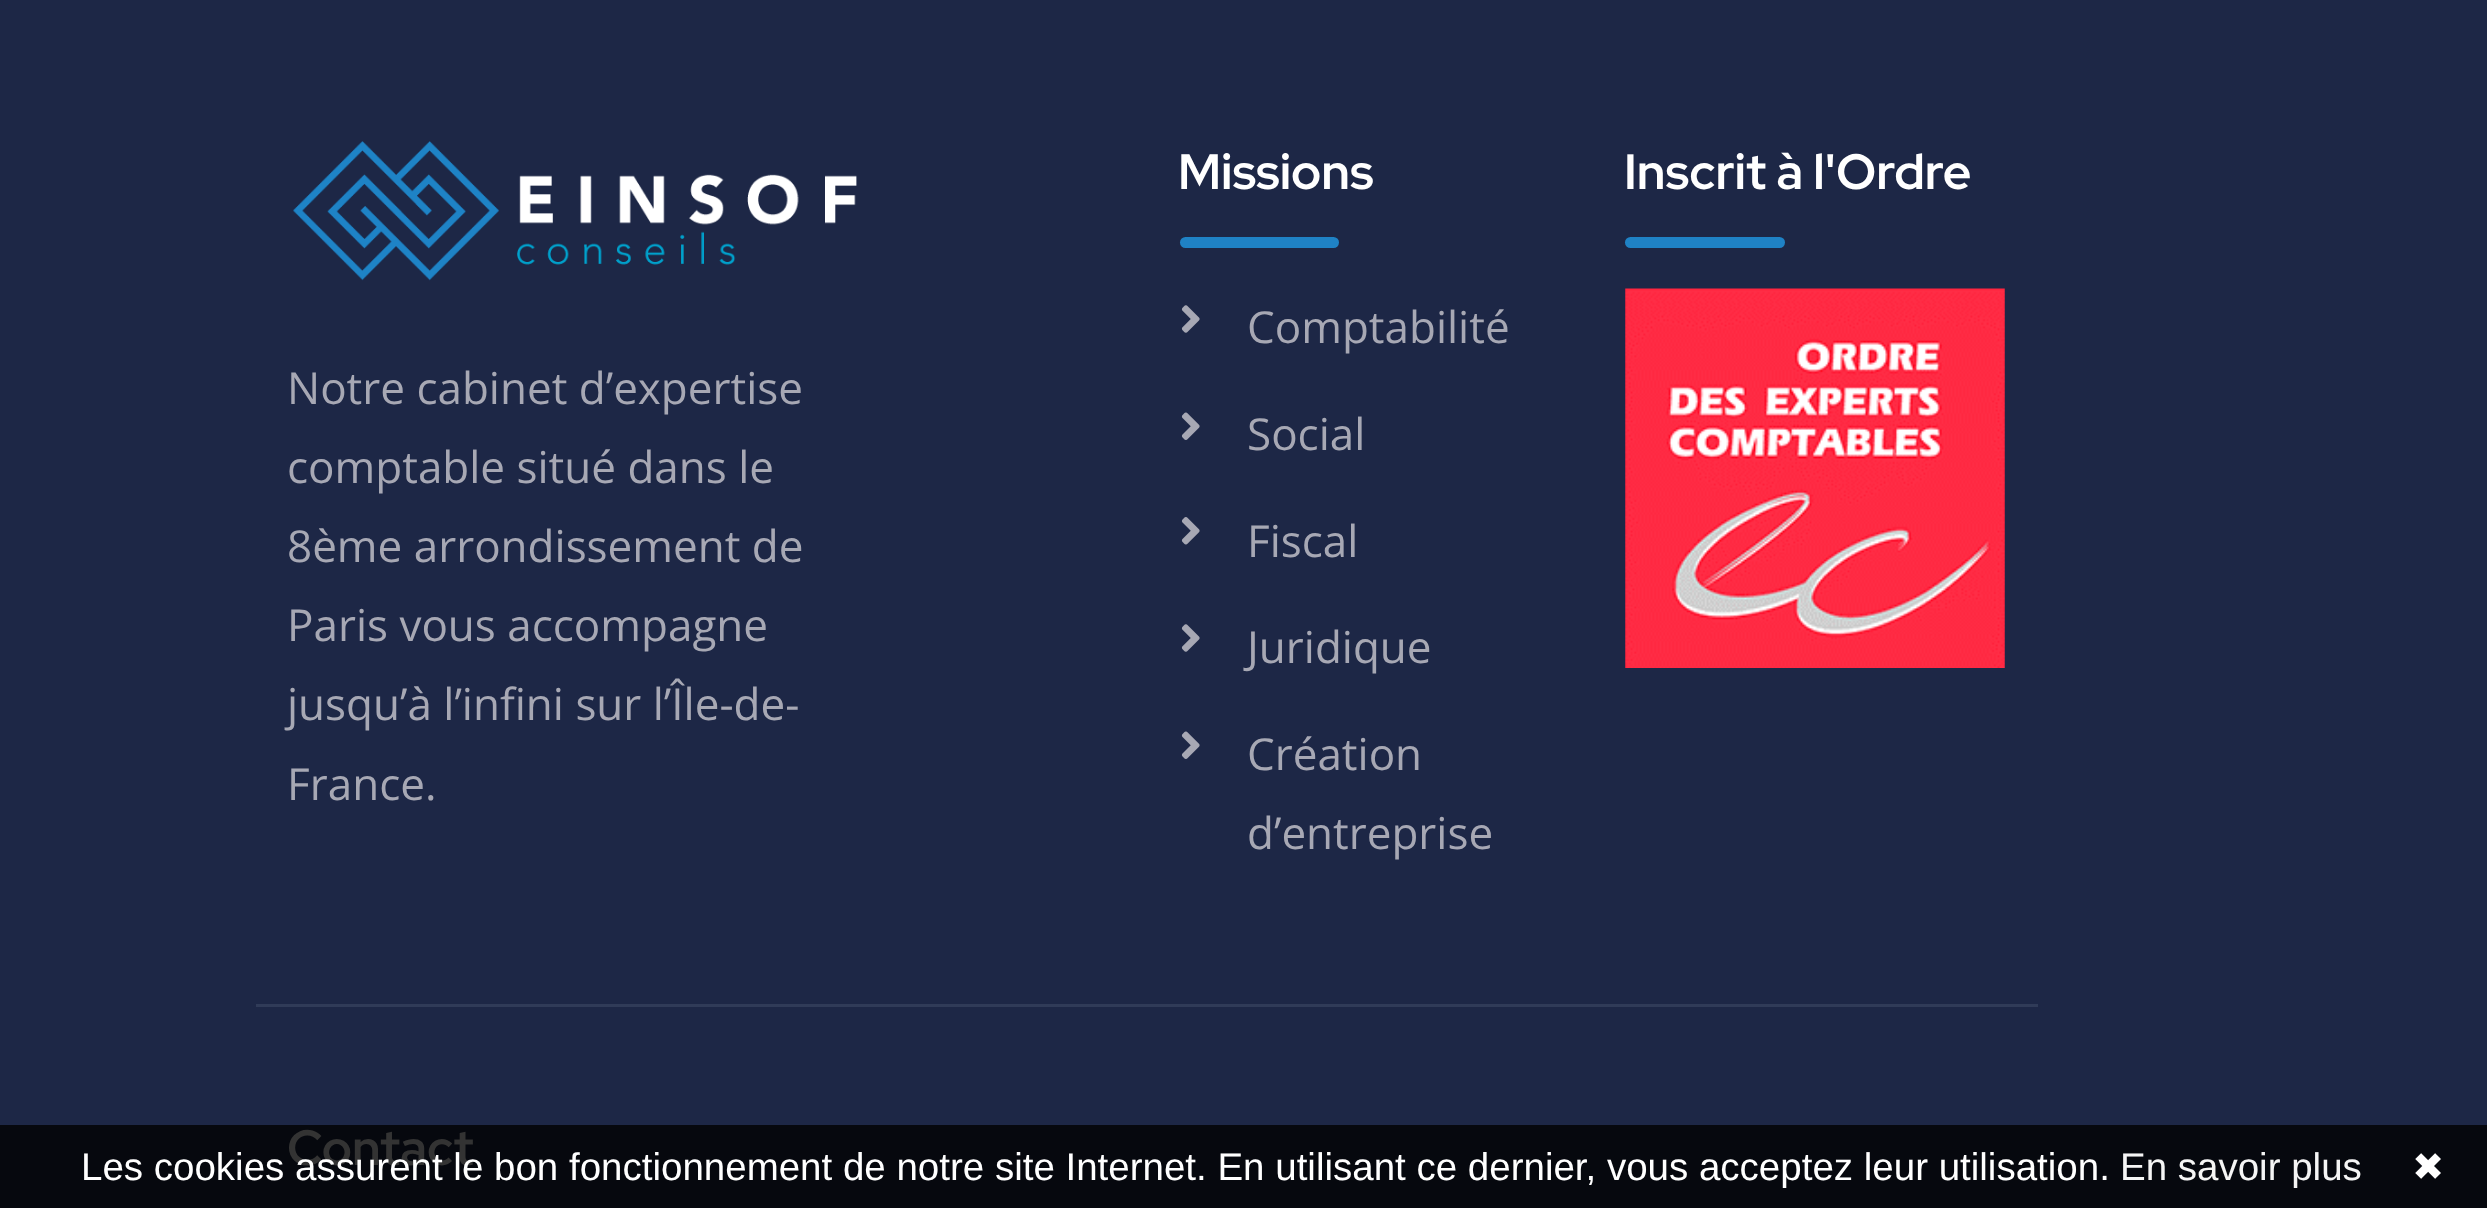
async function draw(canvas) {
  canvas.width = 2487
  canvas.height = 1208
  const ctx = canvas.getContext('2d')
  ctx.miterLimit = 4
  ctx.fontKerning = 'normal'
  async function loadImage(src) {
    const img = new Image()
    img.src = src
    await img.decode()
    return img
  }

  ctx.fillStyle = '#1d2746'
  ctx.fillRect(0, 0, 2487, 1208)
  ctx.fillStyle = '#06080e'
  ctx.fillRect(0, 1125, 2487, 83)
  ctx.fillStyle = '#303b58'
  ctx.fillRect(256, 1004, 1782, 3)
  ctx.drawImage(await loadImage('image0.png'), 293, 141, 564, 140)
  ctx.font = '44px Open Sans'
  ctx.fillStyle = '#a7a8b4'
  ctx.fillText('Notre cabinet d’expertise', 287, 404)
  ctx.fillText('comptable situé dans le', 287, 483)
  ctx.fillText('8ème arrondissement de', 287, 562)
  ctx.fillText('Paris vous accompagne', 287, 641)
  ctx.fillText('jusqu’à l’infini sur l’Île-de-', 287, 720)
  ctx.fillText('France.', 287, 800)
  ctx.font = 'bold 49.5px Red Hat Display'
  ctx.fillStyle = '#fff'
  ctx.fillText('Missions', 1178, 189)
  ctx.fillStyle = '#1f82c5'
  ctx.beginPath()
  ctx.roundRect(1180, 237, 159, 11, 5.5)
  ctx.fill()
  ctx.drawImage(await loadImage('image1.png'), 1181, 305, 19, 28)
  ctx.font = '44px Open Sans'
  ctx.fillStyle = '#a7a8b4'
  ctx.fillText('Comptabilité', 1247, 343)
  ctx.drawImage(await loadImage('image2.png'), 1181, 412, 19, 28)
  ctx.fillText('Social', 1247, 450)
  ctx.drawImage(await loadImage('image3.png'), 1181, 517, 19, 28)
  ctx.fillText('Fiscal', 1247, 557)
  ctx.drawImage(await loadImage('image1.png'), 1181, 624, 19, 28)
  ctx.fillText('Juridique', 1247, 663)
  ctx.drawImage(await loadImage('image2.png'), 1181, 731, 19, 28)
  ctx.fillText('Création', 1247, 770)
  ctx.fillText('d’entreprise', 1247, 849)
  ctx.font = 'bold 49.5px Red Hat Display'
  ctx.fillStyle = '#fff'
  ctx.fillText('Inscrit à l\'Ordre', 1624, 189)
  ctx.fillStyle = '#1f82c5'
  ctx.beginPath()
  ctx.roundRect(1625, 237, 160, 11, 5.5)
  ctx.fill()
  ctx.drawImage(await loadImage('image4.png'), 1625, 288, 380, 380)
  ctx.fillStyle = '#333'
  ctx.fillText('Contact', 287, 1165)
  ctx.font = '38.5px Liberation Sans'
  ctx.fillStyle = '#fff'
  ctx.fillText('Les cookies assurent le bon fonctionnement de notre site Internet. En utilisant ce dernier, vous acceptez leur utilisation.', 81, 1180)
  ctx.fillStyle = '#f5f5f5'
  ctx.fillText('En savoir plus', 2120, 1180)
  ctx.font = '38.5px DejaVu Sans'
  ctx.fillStyle = '#fff'
  ctx.fillText('✖', 2412, 1180)
}

draw(document.querySelector('canvas'))
